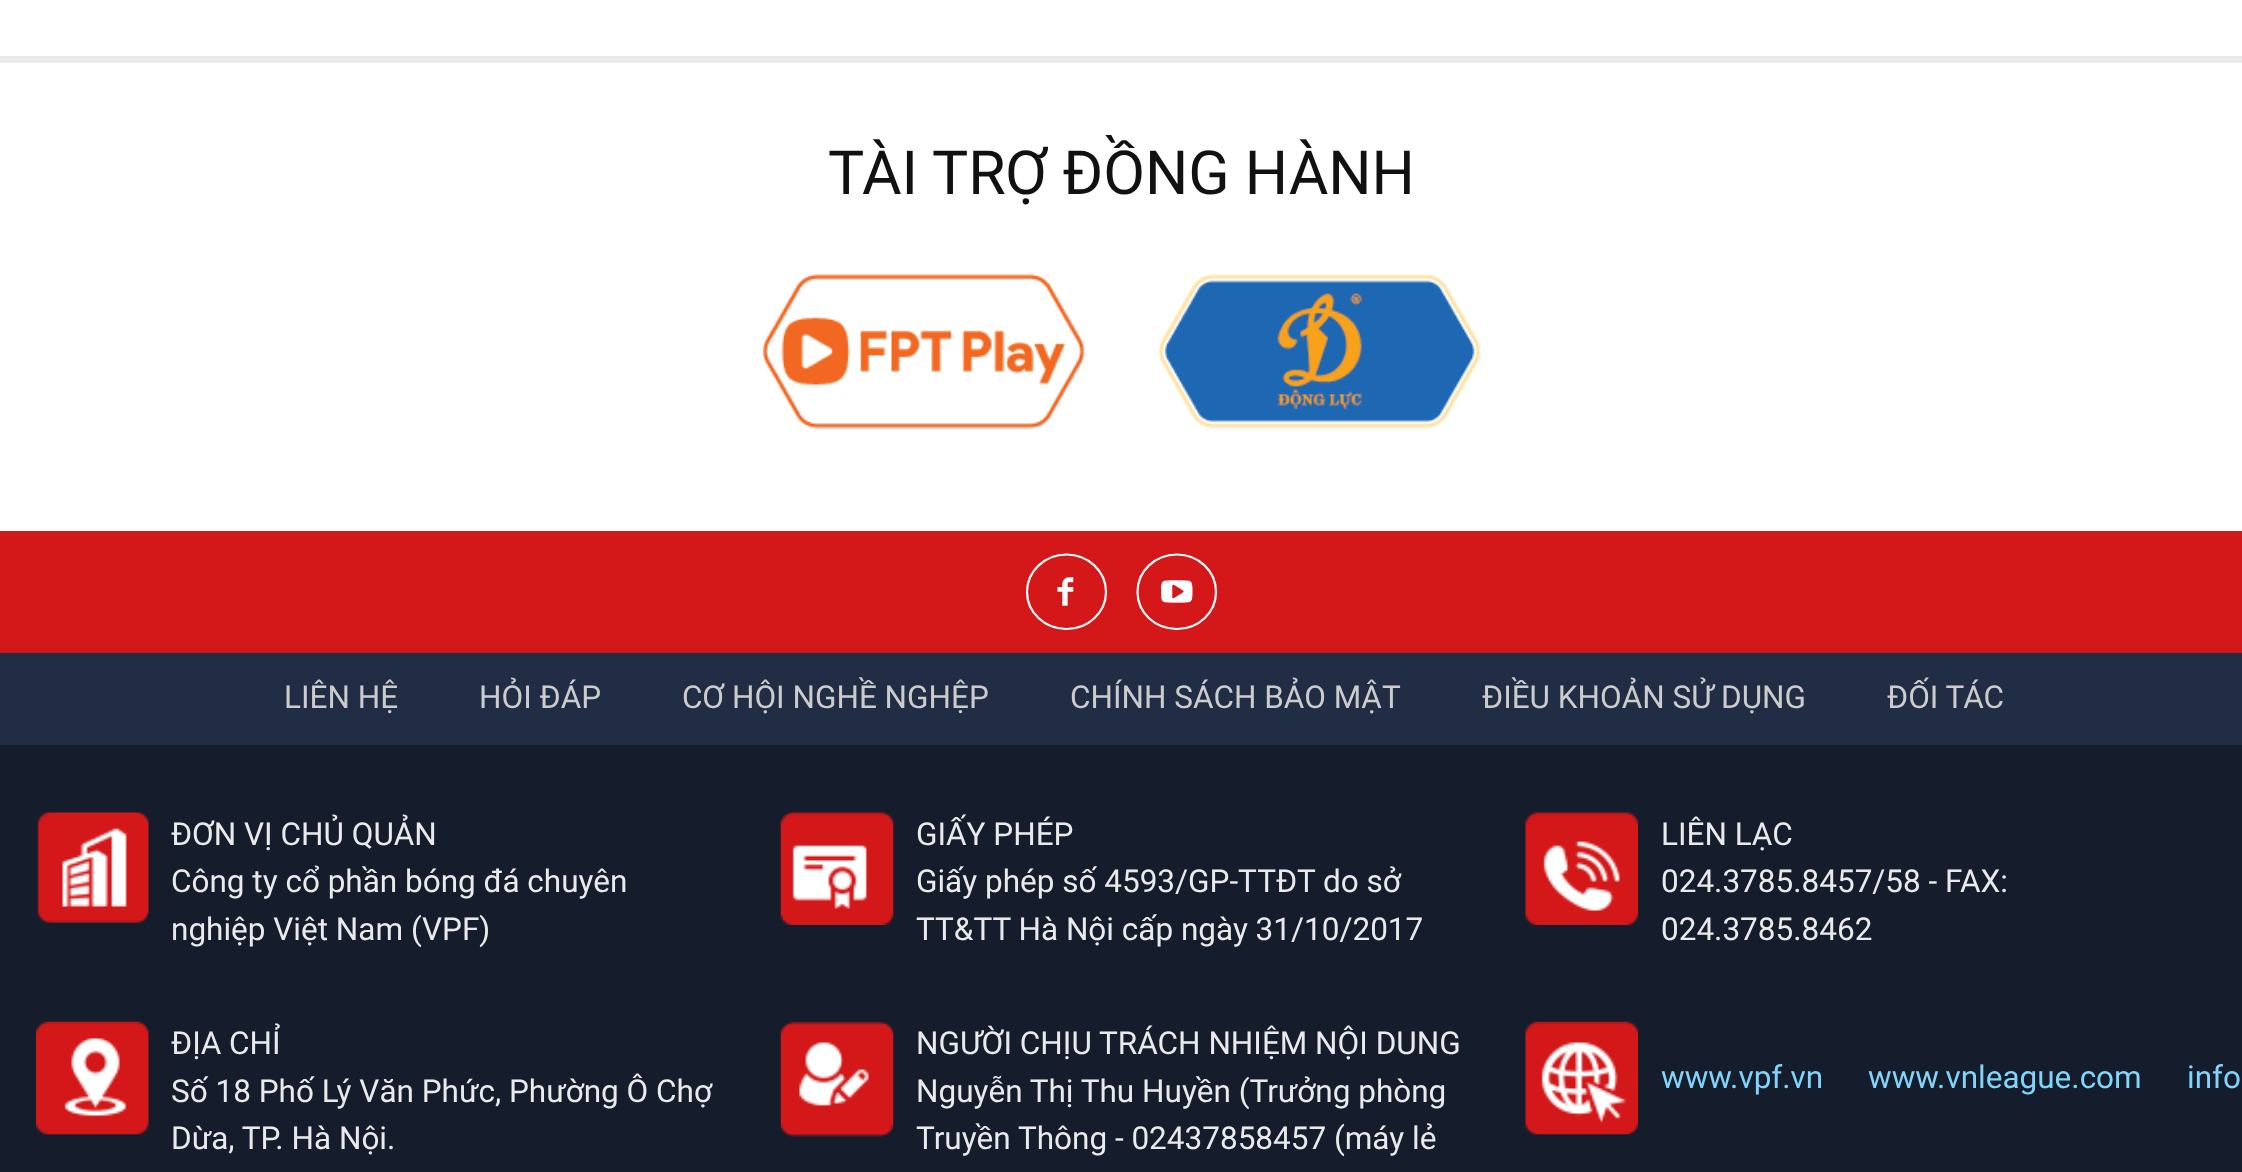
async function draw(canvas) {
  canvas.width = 2242
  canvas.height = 1172
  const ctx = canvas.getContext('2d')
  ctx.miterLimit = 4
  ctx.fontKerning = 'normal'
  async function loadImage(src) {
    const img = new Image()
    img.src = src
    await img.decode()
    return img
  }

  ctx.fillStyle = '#d41819'
  ctx.fillRect(0, 0, 2242, 1172)
  ctx.fillStyle = '#fff'
  ctx.fillRect(0, 0, 2242, 531)
  ctx.fillStyle = '#eaeaea'
  ctx.fillRect(0, 56, 2242, 7)
  ctx.font = '60.75px Roboto'
  ctx.fillStyle = '#111'
  ctx.fillText('TÀI TRỢ ĐỒNG HÀNH', 828, 194)
  ctx.drawImage(await loadImage('image0.png'), 762, 274, 323, 155)
  ctx.drawImage(await loadImage('image1.png'), 1159, 274, 322, 155)
  ctx.beginPath()
  ctx.moveTo(1066.5, 554.5)
  ctx.bezierCurveTo(1088, 554.5, 1106, 571, 1106, 592)
  ctx.bezierCurveTo(1106, 612.5, 1088, 629, 1066.5, 629)
  ctx.bezierCurveTo(1045, 629, 1027, 612.5, 1027, 592)
  ctx.bezierCurveTo(1027, 571, 1045, 554.5, 1066.5, 554.5)
  ctx.closePath()
  ctx.strokeStyle = '#fff'
  ctx.lineWidth = 2.2
  ctx.stroke()
  ctx.drawImage(await loadImage('image2.png'), 1057, 577, 17, 29)
  ctx.beginPath()
  ctx.moveTo(1177, 554.5)
  ctx.bezierCurveTo(1198.5, 554.5, 1216, 571, 1216, 592)
  ctx.bezierCurveTo(1216, 612.5, 1198.5, 629, 1177, 629)
  ctx.bezierCurveTo(1155, 629, 1137.5, 612.5, 1137.5, 592)
  ctx.bezierCurveTo(1137.5, 571, 1155, 554.5, 1177, 554.5)
  ctx.closePath()
  ctx.stroke()
  ctx.drawImage(await loadImage('image3.png'), 1161, 580, 32, 23)
  ctx.fillStyle = '#212d44'
  ctx.fillRect(0, 653, 2242, 92)
  ctx.font = '31.5px Roboto'
  ctx.fillStyle = '#ccc'
  ctx.fillText('LIÊN HỆ', 284, 708)
  ctx.fillText('HỎI ĐÁP', 479, 708)
  ctx.fillText('CƠ HỘI NGHỀ NGHỆP', 682, 708)
  ctx.fillText('CHÍNH SÁCH BẢO MẬT', 1070, 708)
  ctx.fillText('ĐIỀU KHOẢN SỬ DỤNG', 1482, 708)
  ctx.fillText('ĐỐI TÁC', 1887, 708)
  ctx.fillStyle = '#151d2d'
  ctx.fillRect(0, 745, 2242, 427)
  ctx.drawImage(await loadImage('image4.png'), 37, 812, 112, 111)
  ctx.fillStyle = '#eaeaea'
  ctx.fillText('ĐƠN VỊ CHỦ QUẢN', 171, 845)
  ctx.fillText('Công ty cổ phần bóng đá chuyên', 171, 892)
  ctx.fillText('nghiệp Việt Nam (VPF)', 171, 940)
  ctx.drawImage(await loadImage('image5.png'), 36, 1021, 113, 114)
  ctx.fillText('ĐỊA CHỈ', 171, 1054)
  ctx.fillText('Số 18 Phố Lý Văn Phức, Phường Ô Chợ', 171, 1102)
  ctx.fillText('Dừa, TP. Hà Nội.', 171, 1149)
  ctx.drawImage(await loadImage('image6.png'), 780, 812, 114, 113)
  ctx.fillText('GIẤY PHÉP', 916, 845)
  ctx.fillText('Giấy phép số 4593/GP-TTĐT do sở', 916, 892)
  ctx.fillText('TT&TT Hà Nội cấp ngày 31/10/2017', 916, 940)
  ctx.drawImage(await loadImage('image7.png'), 780, 1021, 114, 116)
  ctx.fillText('NGƯỜI CHỊU TRÁCH NHIỆM NỘI DUNG', 916, 1054)
  ctx.fillText('Nguyễn Thị Thu Huyền (Trưởng phòng', 916, 1102)
  ctx.fillText('Truyền Thông - 02437858457 (máy lẻ', 916, 1149)
  ctx.drawImage(await loadImage('image8.png'), 1525, 812, 113, 113)
  ctx.fillText('LIÊN LẠC', 1661, 845)
  ctx.fillText('024.3785.8457/58 - FAX:', 1661, 892)
  ctx.fillText('024.3785.8462', 1661, 940)
  ctx.drawImage(await loadImage('image9.png'), 1525, 1021, 113, 114)
  ctx.fillStyle = '#81d4fa'
  ctx.fillText('www.vpf.vn', 1661, 1088)
  ctx.fillText('www.vnleague.com', 1868, 1088)
  ctx.fillText('info', 2187, 1088)
}

draw(document.querySelector('canvas'))
